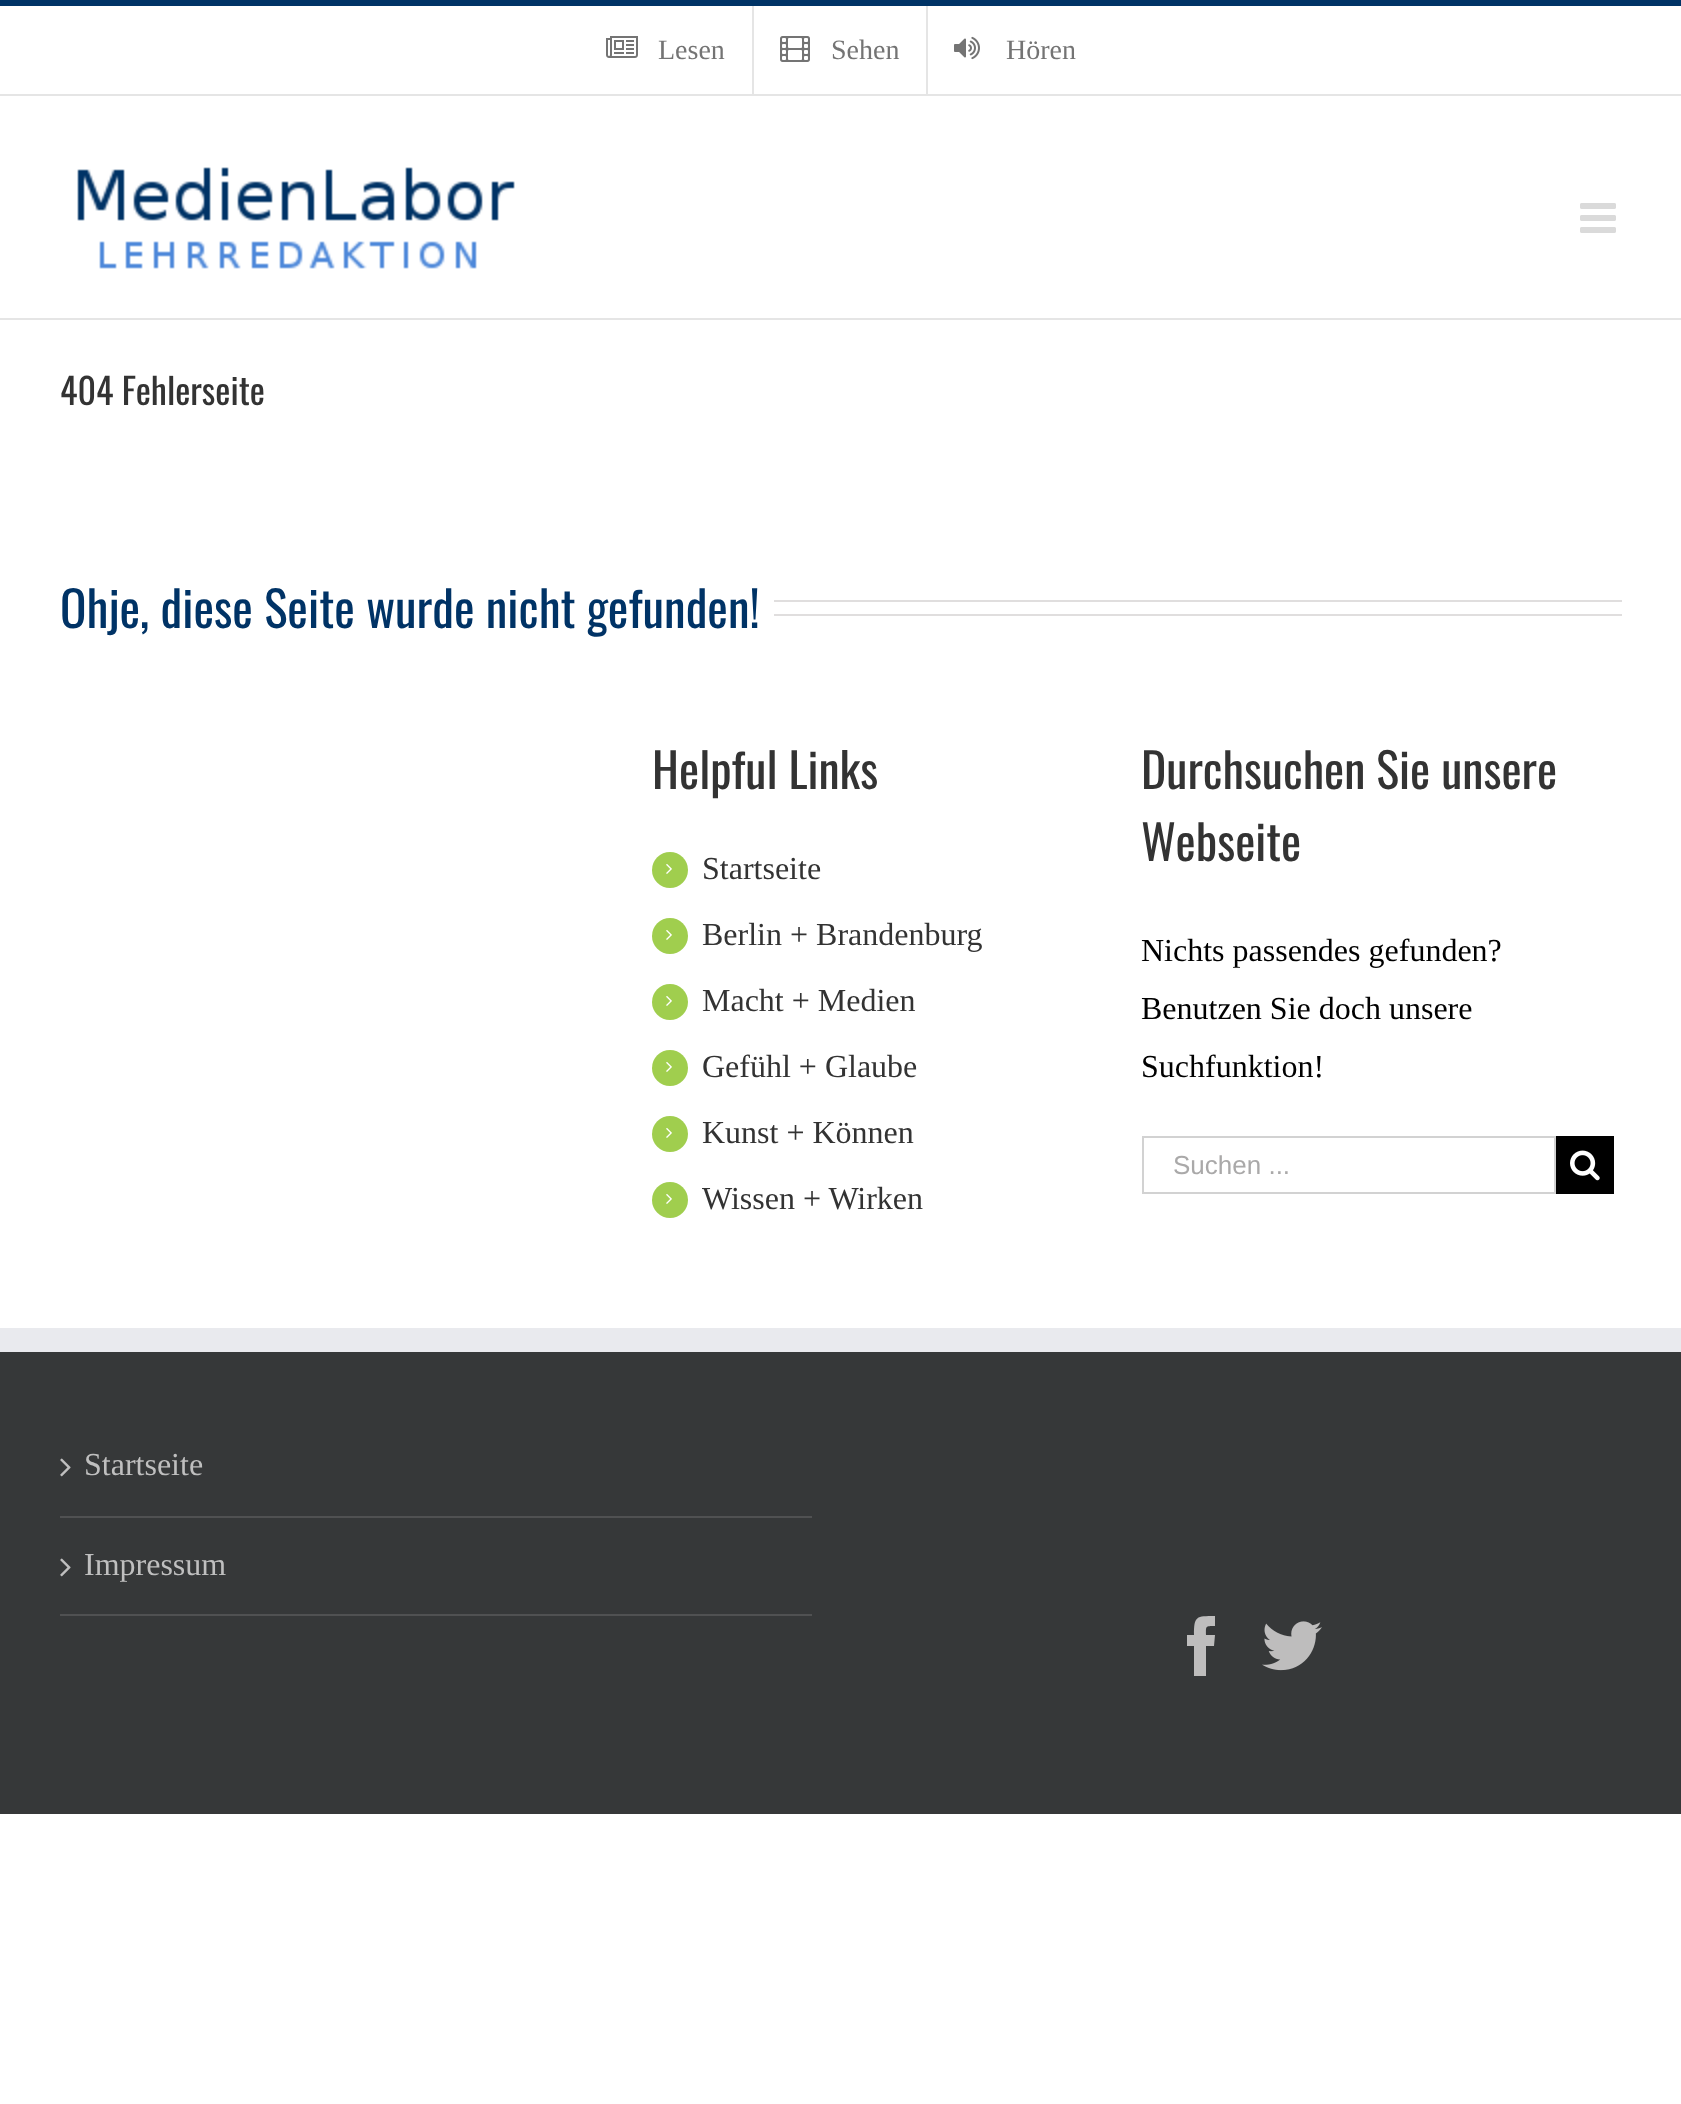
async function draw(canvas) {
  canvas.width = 1681
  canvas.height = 2104
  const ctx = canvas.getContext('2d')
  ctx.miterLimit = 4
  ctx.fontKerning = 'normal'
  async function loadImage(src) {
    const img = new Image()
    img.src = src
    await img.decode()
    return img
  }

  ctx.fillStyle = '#fff'
  ctx.fillRect(0, 0, 1681, 2104)
  ctx.fillStyle = '#036'
  ctx.fillRect(0, 0, 1681, 6)
  ctx.fillStyle = '#e5e5e5'
  ctx.fillRect(0, 94, 1681, 2)
  ctx.drawImage(await loadImage('image0.png'), 606, 36, 32, 22)
  ctx.font = '28px Liberation Serif'
  ctx.fillStyle = '#747474'
  ctx.fillText('Lesen', 658, 59)
  ctx.fillStyle = '#e5e5e5'
  ctx.fillRect(752, 6, 2, 88)
  ctx.drawImage(await loadImage('image1.png'), 780, 36, 30, 26)
  ctx.fillStyle = '#747474'
  ctx.fillText('Sehen', 831, 59)
  ctx.fillStyle = '#e5e5e5'
  ctx.fillRect(926, 6, 2, 88)
  ctx.drawImage(await loadImage('image2.png'), 954, 36, 26, 24)
  ctx.fillStyle = '#747474'
  ctx.fillText('Hören', 1006, 59)
  ctx.fillStyle = '#e5e5e5'
  ctx.fillRect(0, 318, 1681, 2)
  ctx.drawImage(await loadImage('image3.png'), 77, 167, 438, 102)
  ctx.drawImage(await loadImage('image4.png'), 1580, 203, 36, 30)
  ctx.font = '36px Oswald'
  ctx.fillStyle = '#333'
  ctx.fillText('404 Fehlerseite', 60, 405)
  ctx.font = '49px Oswald'
  ctx.fillStyle = '#036'
  ctx.fillText('Ohje, diese Seite wurde nicht gefunden!', 60, 628)
  ctx.fillStyle = '#e0dede'
  ctx.fillRect(774, 600, 848, 2)
  ctx.fillRect(774, 614, 848, 2)
  ctx.font = '48px Oswald'
  ctx.fillStyle = '#333'
  ctx.fillText('Helpful Links', 652, 789)
  ctx.fillStyle = '#a0ce4e'
  ctx.beginPath()
  ctx.arc(670, 870, 18, 0, 2 * Math.PI)
  ctx.fill()
  ctx.drawImage(await loadImage('image5.png'), 666, 864, 6, 10)
  ctx.font = '32px Liberation Serif'
  ctx.fillStyle = '#333'
  ctx.fillText('Startseite', 702, 879)
  ctx.fillStyle = '#a0ce4e'
  ctx.beginPath()
  ctx.arc(670, 936, 18, 0, 2 * Math.PI)
  ctx.fill()
  ctx.drawImage(await loadImage('image5.png'), 666, 930, 6, 10)
  ctx.fillStyle = '#333'
  ctx.fillText('Berlin + Brandenburg', 702, 945)
  ctx.fillStyle = '#a0ce4e'
  ctx.beginPath()
  ctx.arc(670, 1002, 18, 0, 2 * Math.PI)
  ctx.fill()
  ctx.drawImage(await loadImage('image5.png'), 666, 996, 6, 10)
  ctx.fillStyle = '#333'
  ctx.fillText('Macht + Medien', 702, 1011)
  ctx.fillStyle = '#a0ce4e'
  ctx.beginPath()
  ctx.arc(670, 1068, 18, 0, 2 * Math.PI)
  ctx.fill()
  ctx.drawImage(await loadImage('image5.png'), 666, 1062, 6, 10)
  ctx.fillStyle = '#333'
  ctx.fillText('Gefühl + Glaube', 702, 1077)
  ctx.fillStyle = '#a0ce4e'
  ctx.beginPath()
  ctx.arc(670, 1134, 18, 0, 2 * Math.PI)
  ctx.fill()
  ctx.drawImage(await loadImage('image5.png'), 666, 1128, 6, 10)
  ctx.fillStyle = '#333'
  ctx.fillText('Kunst + Können', 702, 1143)
  ctx.fillStyle = '#a0ce4e'
  ctx.beginPath()
  ctx.arc(670, 1200, 18, 0, 2 * Math.PI)
  ctx.fill()
  ctx.drawImage(await loadImage('image5.png'), 666, 1194, 6, 10)
  ctx.fillStyle = '#333'
  ctx.fillText('Wissen + Wirken', 702, 1209)
  ctx.font = '48px Oswald'
  ctx.fillText('Durchsuchen Sie unsere', 1141, 789)
  ctx.fillText('Webseite', 1141, 861)
  ctx.font = '32px Liberation Serif'
  ctx.fillStyle = '#000'
  ctx.fillText('Nichts passendes gefunden?', 1141, 961)
  ctx.fillText('Benutzen Sie doch unsere', 1141, 1019)
  ctx.fillText('Suchfunktion!', 1141, 1077)
  ctx.strokeStyle = '#d2d2d2'
  ctx.lineWidth = 2
  ctx.strokeRect(1143, 1137, 412, 56)
  ctx.font = '26px Liberation Sans'
  ctx.fillStyle = '#aaa9a9'
  ctx.fillText('Suchen ...', 1173, 1174)
  ctx.fillStyle = '#000'
  ctx.fillRect(1556, 1136, 58, 58)
  ctx.drawImage(await loadImage('image6.png'), 1570, 1150, 30, 31)
  ctx.fillStyle = '#363839'
  ctx.fillRect(0, 1352, 1681, 462)
  ctx.fillStyle = '#e9eaee'
  ctx.fillRect(0, 1328, 1681, 24)
  ctx.fillStyle = '#505152'
  ctx.fillRect(60, 1516, 752, 2)
  ctx.drawImage(await loadImage('image7.png'), 60, 1458, 11, 19)
  ctx.font = '32px Liberation Serif'
  ctx.fillStyle = '#bfbfbf'
  ctx.fillText('Startseite', 84, 1475)
  ctx.fillStyle = '#505152'
  ctx.fillRect(60, 1614, 752, 2)
  ctx.drawImage(await loadImage('image7.png'), 60, 1558, 11, 19)
  ctx.fillStyle = '#bfbfbf'
  ctx.fillText('Impressum', 84, 1575)
  ctx.fillStyle = '#bebdbd'
  ctx.beginPath()
  ctx.moveTo(1206, 1676)
  ctx.lineTo(1194, 1676)
  ctx.lineTo(1194, 1646)
  ctx.lineTo(1187, 1646)
  ctx.lineTo(1187, 1635)
  ctx.lineTo(1194, 1635)
  ctx.bezierCurveTo(1194, 1616, 1196, 1616, 1215, 1616)
  ctx.lineTo(1215, 1626)
  ctx.bezierCurveTo(1205, 1626, 1206, 1626, 1206, 1635)
  ctx.lineTo(1215, 1635)
  ctx.lineTo(1214, 1646)
  ctx.lineTo(1206, 1646)
  ctx.closePath()
  ctx.fill()
  ctx.drawImage(await loadImage('image8.png'), 1262, 1621, 60, 50)
}

draw(document.querySelector('canvas'))
